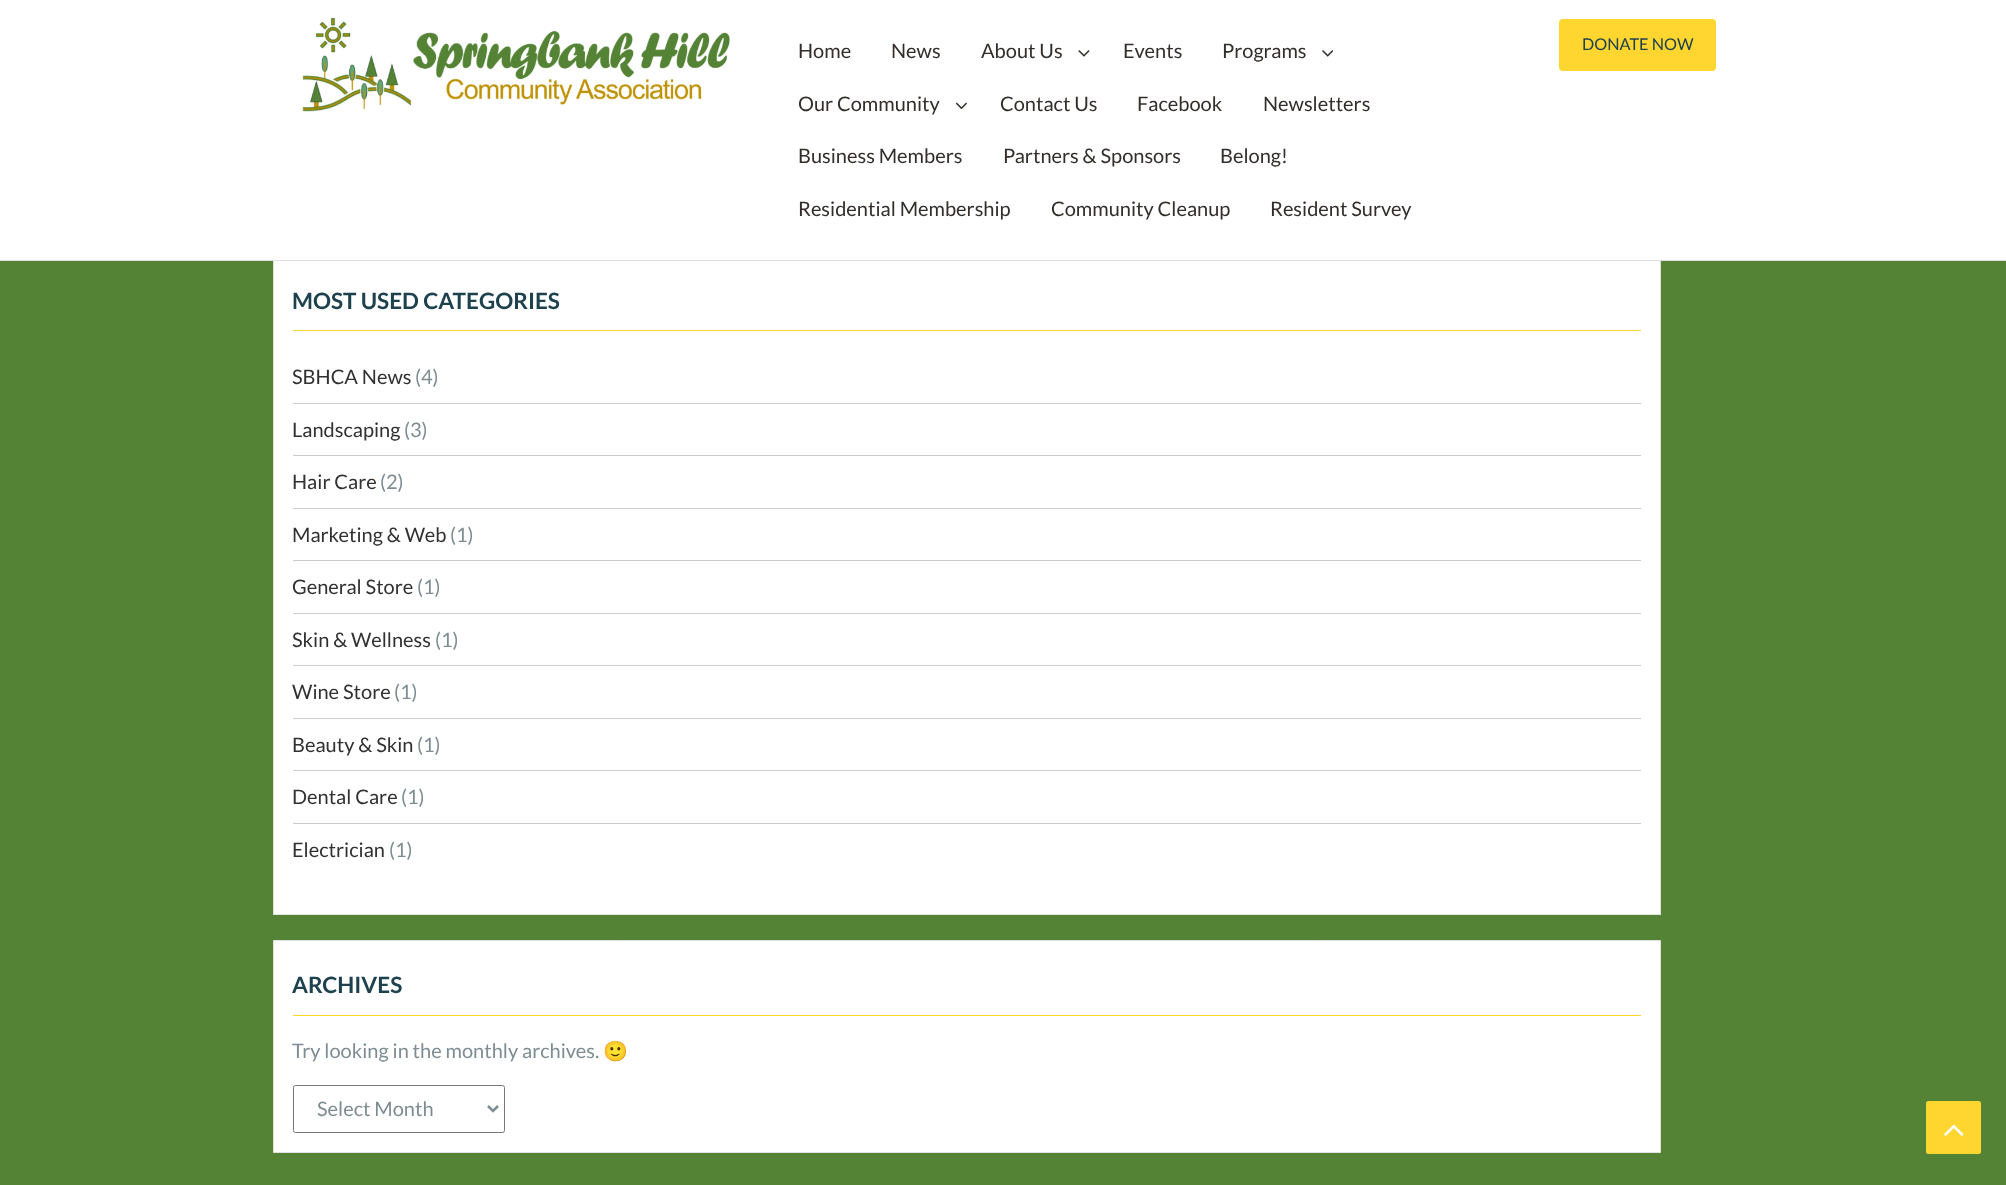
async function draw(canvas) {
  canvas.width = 2006
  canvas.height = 1185
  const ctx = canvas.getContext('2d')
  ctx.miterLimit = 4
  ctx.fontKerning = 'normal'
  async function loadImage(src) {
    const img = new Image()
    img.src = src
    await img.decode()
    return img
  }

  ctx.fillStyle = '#548335'
  ctx.fillRect(0, 0, 2006, 1185)
  ctx.fillStyle = '#fff'
  ctx.fillRect(274, 261, 1386, 653)
  ctx.strokeStyle = '#e1e1e1'
  ctx.strokeRect(273.5, 256.5, 1387, 658)
  ctx.fillRect(0, 0, 2006, 260)
  ctx.fillStyle = '#dedede'
  ctx.fillRect(0, 260, 2006, 1)
  ctx.drawImage(await loadImage('image0.png'), 302, 17, 428, 95)
  ctx.font = '20px Lato'
  ctx.fillStyle = '#332e2b'
  ctx.fillText('Home', 798, 58)
  ctx.fillText('News', 891, 58)
  ctx.fillText('About Us', 981, 58)
  ctx.drawImage(await loadImage('image1.png'), 1078, 50, 12, 7)
  ctx.fillText('Events', 1123, 58)
  ctx.fillText('Programs', 1222, 58)
  ctx.drawImage(await loadImage('image2.png'), 1322, 50, 12, 7)
  ctx.fillText('Our Community', 798, 111)
  ctx.drawImage(await loadImage('image3.png'), 955, 102, 12, 8)
  ctx.fillText('Contact Us', 1000, 111)
  ctx.fillText('Facebook', 1137, 111)
  ctx.fillText('Newsletters', 1263, 111)
  ctx.fillText('Business Members', 798, 163)
  ctx.fillText('Partners & Sponsors', 1003, 163)
  ctx.fillText('Belong!', 1220, 163)
  ctx.fillText('Residential Membership', 798, 216)
  ctx.fillText('Community Cleanup', 1051, 216)
  ctx.fillText('Resident Survey', 1270, 216)
  ctx.fillStyle = '#ffd52f'
  ctx.beginPath()
  ctx.roundRect(1559, 19, 157, 52, 4)
  ctx.fill()
  ctx.font = '16.25px Lato'
  ctx.fillStyle = '#1e414e'
  ctx.fillText('DONATE NOW', 1582, 50)
  ctx.fillStyle = '#ffd52f'
  ctx.fillRect(293, 330, 1348, 1)
  ctx.font = 'bold 22.5px Lato'
  ctx.fillStyle = '#1e414e'
  ctx.fillText('MOST USED CATEGORIES', 292, 309)
  ctx.font = '20px Lato'
  ctx.fillStyle = '#313131'
  ctx.fillText('SBHCA News', 292, 384)
  ctx.fillStyle = '#7e8d94'
  ctx.fillText('(4)', 415, 384)
  ctx.fillStyle = '#ccc'
  ctx.fillRect(293, 403, 1348, 1)
  ctx.fillStyle = '#313131'
  ctx.fillText('Landscaping', 292, 437)
  ctx.fillStyle = '#7e8d94'
  ctx.fillText('(3)', 404, 437)
  ctx.fillStyle = '#ccc'
  ctx.fillRect(293, 455, 1348, 1)
  ctx.fillStyle = '#313131'
  ctx.fillText('Hair Care', 292, 489)
  ctx.fillStyle = '#7e8d94'
  ctx.fillText('(2)', 380, 489)
  ctx.fillStyle = '#ccc'
  ctx.fillRect(293, 508, 1348, 1)
  ctx.fillStyle = '#313131'
  ctx.fillText('Marketing & Web', 292, 542)
  ctx.fillStyle = '#7e8d94'
  ctx.fillText('(1)', 450, 542)
  ctx.fillStyle = '#ccc'
  ctx.fillRect(293, 560, 1348, 1)
  ctx.fillStyle = '#313131'
  ctx.fillText('General Store', 292, 594)
  ctx.fillStyle = '#7e8d94'
  ctx.fillText('(1)', 417, 594)
  ctx.fillStyle = '#ccc'
  ctx.fillRect(293, 613, 1348, 1)
  ctx.fillStyle = '#313131'
  ctx.fillText('Skin & Wellness', 292, 647)
  ctx.fillStyle = '#7e8d94'
  ctx.fillText('(1)', 435, 647)
  ctx.fillStyle = '#ccc'
  ctx.fillRect(293, 665, 1348, 1)
  ctx.fillStyle = '#313131'
  ctx.fillText('Wine Store', 292, 699)
  ctx.fillStyle = '#7e8d94'
  ctx.fillText('(1)', 394, 699)
  ctx.fillStyle = '#ccc'
  ctx.fillRect(293, 718, 1348, 1)
  ctx.fillStyle = '#313131'
  ctx.fillText('Beauty & Skin', 292, 752)
  ctx.fillStyle = '#7e8d94'
  ctx.fillText('(1)', 417, 752)
  ctx.fillStyle = '#ccc'
  ctx.fillRect(293, 770, 1348, 1)
  ctx.fillStyle = '#313131'
  ctx.fillText('Dental Care', 292, 804)
  ctx.fillStyle = '#7e8d94'
  ctx.fillText('(1)', 401, 804)
  ctx.fillStyle = '#ccc'
  ctx.fillRect(293, 823, 1348, 1)
  ctx.fillStyle = '#313131'
  ctx.fillText('Electrician', 292, 857)
  ctx.fillStyle = '#7e8d94'
  ctx.fillText('(1)', 389, 857)
  ctx.fillStyle = '#fff'
  ctx.beginPath()
  ctx.rect(273.5, 940.5, 1387, 212)
  ctx.fill()
  ctx.stroke()
  ctx.fillStyle = '#ffd52f'
  ctx.fillRect(293, 1015, 1348, 1)
  ctx.font = 'bold 22.5px Lato'
  ctx.fillStyle = '#1e414e'
  ctx.fillText('ARCHIVES', 292, 993)
  ctx.font = '20px Lato'
  ctx.fillStyle = '#7e8d94'
  ctx.fillText('Try looking in the monthly archives.', 292, 1058)
  ctx.font = '20px Noto Color Emoji'
  ctx.fillText('🙂', 603, 1058)
  ctx.beginPath()
  ctx.roundRect(293.5, 1085.5, 211, 47, 2)
  ctx.strokeStyle = '#767676'
  ctx.stroke()
  ctx.beginPath()
  ctx.moveTo(488, 1106)
  ctx.lineTo(493, 1111)
  ctx.lineTo(498, 1106)
  ctx.strokeStyle = '#7e8d94'
  ctx.lineWidth = 2.5
  ctx.stroke()
  ctx.font = '20px Lato'
  ctx.fillText('Select Month', 317, 1116)
  ctx.fillStyle = '#ffd52f'
  ctx.beginPath()
  ctx.roundRect(1926, 1101, 55, 53, 2.5)
  ctx.fill()
  ctx.drawImage(await loadImage('image4.png'), 1944, 1124, 20, 12)
}

draw(document.querySelector('canvas'))
